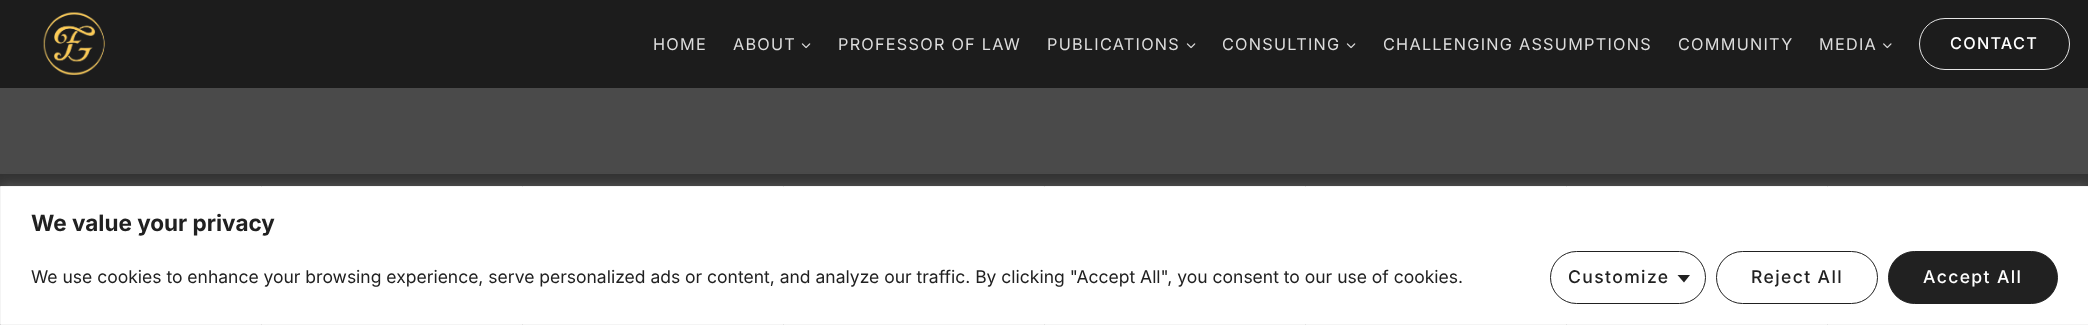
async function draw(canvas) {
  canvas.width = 2088
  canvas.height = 325
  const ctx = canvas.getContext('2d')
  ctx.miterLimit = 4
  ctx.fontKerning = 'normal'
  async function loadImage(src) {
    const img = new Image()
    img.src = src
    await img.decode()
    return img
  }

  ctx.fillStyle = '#4a4a4a'
  ctx.fillRect(0, 0, 2088, 325)
  ctx.fillStyle = '#1c1c1c'
  ctx.fillRect(0, 0, 2088, 88)
  ctx.drawImage(await loadImage('image0.png'), 43, 12, 62, 63)
  ctx.letterSpacing = '1.25px'
  ctx.font = '16.25px Inter'
  ctx.fillStyle = '#ddd'
  ctx.fillText('HOME', 653, 50)
  ctx.fillText('ABOUT', 733, 50)
  ctx.drawImage(await loadImage('image1.png'), 801, 43, 10, 6)
  ctx.fillText('PROFESSOR OF LAW', 838, 50)
  ctx.fillText('PUBLICATIONS', 1047, 50)
  ctx.drawImage(await loadImage('image1.png'), 1186, 43, 10, 6)
  ctx.fillText('CONSULTING', 1222, 50)
  ctx.drawImage(await loadImage('image1.png'), 1346, 43, 10, 6)
  ctx.fillText('CHALLENGING ASSUMPTIONS', 1383, 50)
  ctx.fillText('COMMUNITY', 1678, 50)
  ctx.fillText('MEDIA', 1819, 50)
  ctx.drawImage(await loadImage('image2.png'), 1883, 43, 9, 6)
  ctx.beginPath()
  ctx.roundRect(1919.5, 18.5, 150, 51, 25.5)
  ctx.strokeStyle = '#e5e5e5'
  ctx.stroke()
  ctx.font = '500 16.25px Inter'
  ctx.fillStyle = '#fff'
  ctx.fillText('CONTACT', 1950, 49)
  ctx.fillStyle = '#333'
  ctx.fillRect(0, 174, 2088, 12)
  ctx.fillStyle = '#acabab4d'
  ctx.filter = 'blur(6px)'
  ctx.beginPath()
  ctx.rect(0, 185, 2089, 139)
  ctx.fill()
  ctx.filter = 'none'
  ctx.fillStyle = '#fff'
  ctx.beginPath()
  ctx.rect(0.5, 186.5, 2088, 138)
  ctx.fill()
  ctx.strokeStyle = '#f4f4f4'
  ctx.stroke()
  ctx.letterSpacing = '0px'
  ctx.font = 'bold 22.5px Inter'
  ctx.fillStyle = '#212121'
  ctx.fillText('We value your privacy', 31, 231)
  ctx.font = '17.5px Inter'
  ctx.fillText('We use cookies to enhance your browsing experience, serve personalized ads or content, and analyze our traffic. By clicking "Accept All", you consent to our use of cookies.', 31, 283)
  ctx.beginPath()
  ctx.roundRect(1550.5, 251.5, 155, 52, 26)
  ctx.strokeStyle = '#212121'
  ctx.stroke()
  ctx.letterSpacing = '1.4px'
  ctx.font = '500 17.5px Inter'
  ctx.fillText('Customize', 1568, 283)
  ctx.beginPath()
  ctx.moveTo(1677.5, 275)
  ctx.lineTo(1690, 275)
  ctx.lineTo(1684, 282.5)
  ctx.closePath()
  ctx.fill()
  ctx.beginPath()
  ctx.roundRect(1716.5, 251.5, 161, 52, 26)
  ctx.stroke()
  ctx.fillText('Reject All', 1751, 283)
  ctx.beginPath()
  ctx.roundRect(1888.5, 251.5, 169, 52, 26)
  ctx.fill()
  ctx.stroke()
  ctx.fillStyle = '#fff'
  ctx.fillText('Accept All', 1923, 283)
}

draw(document.querySelector('canvas'))
